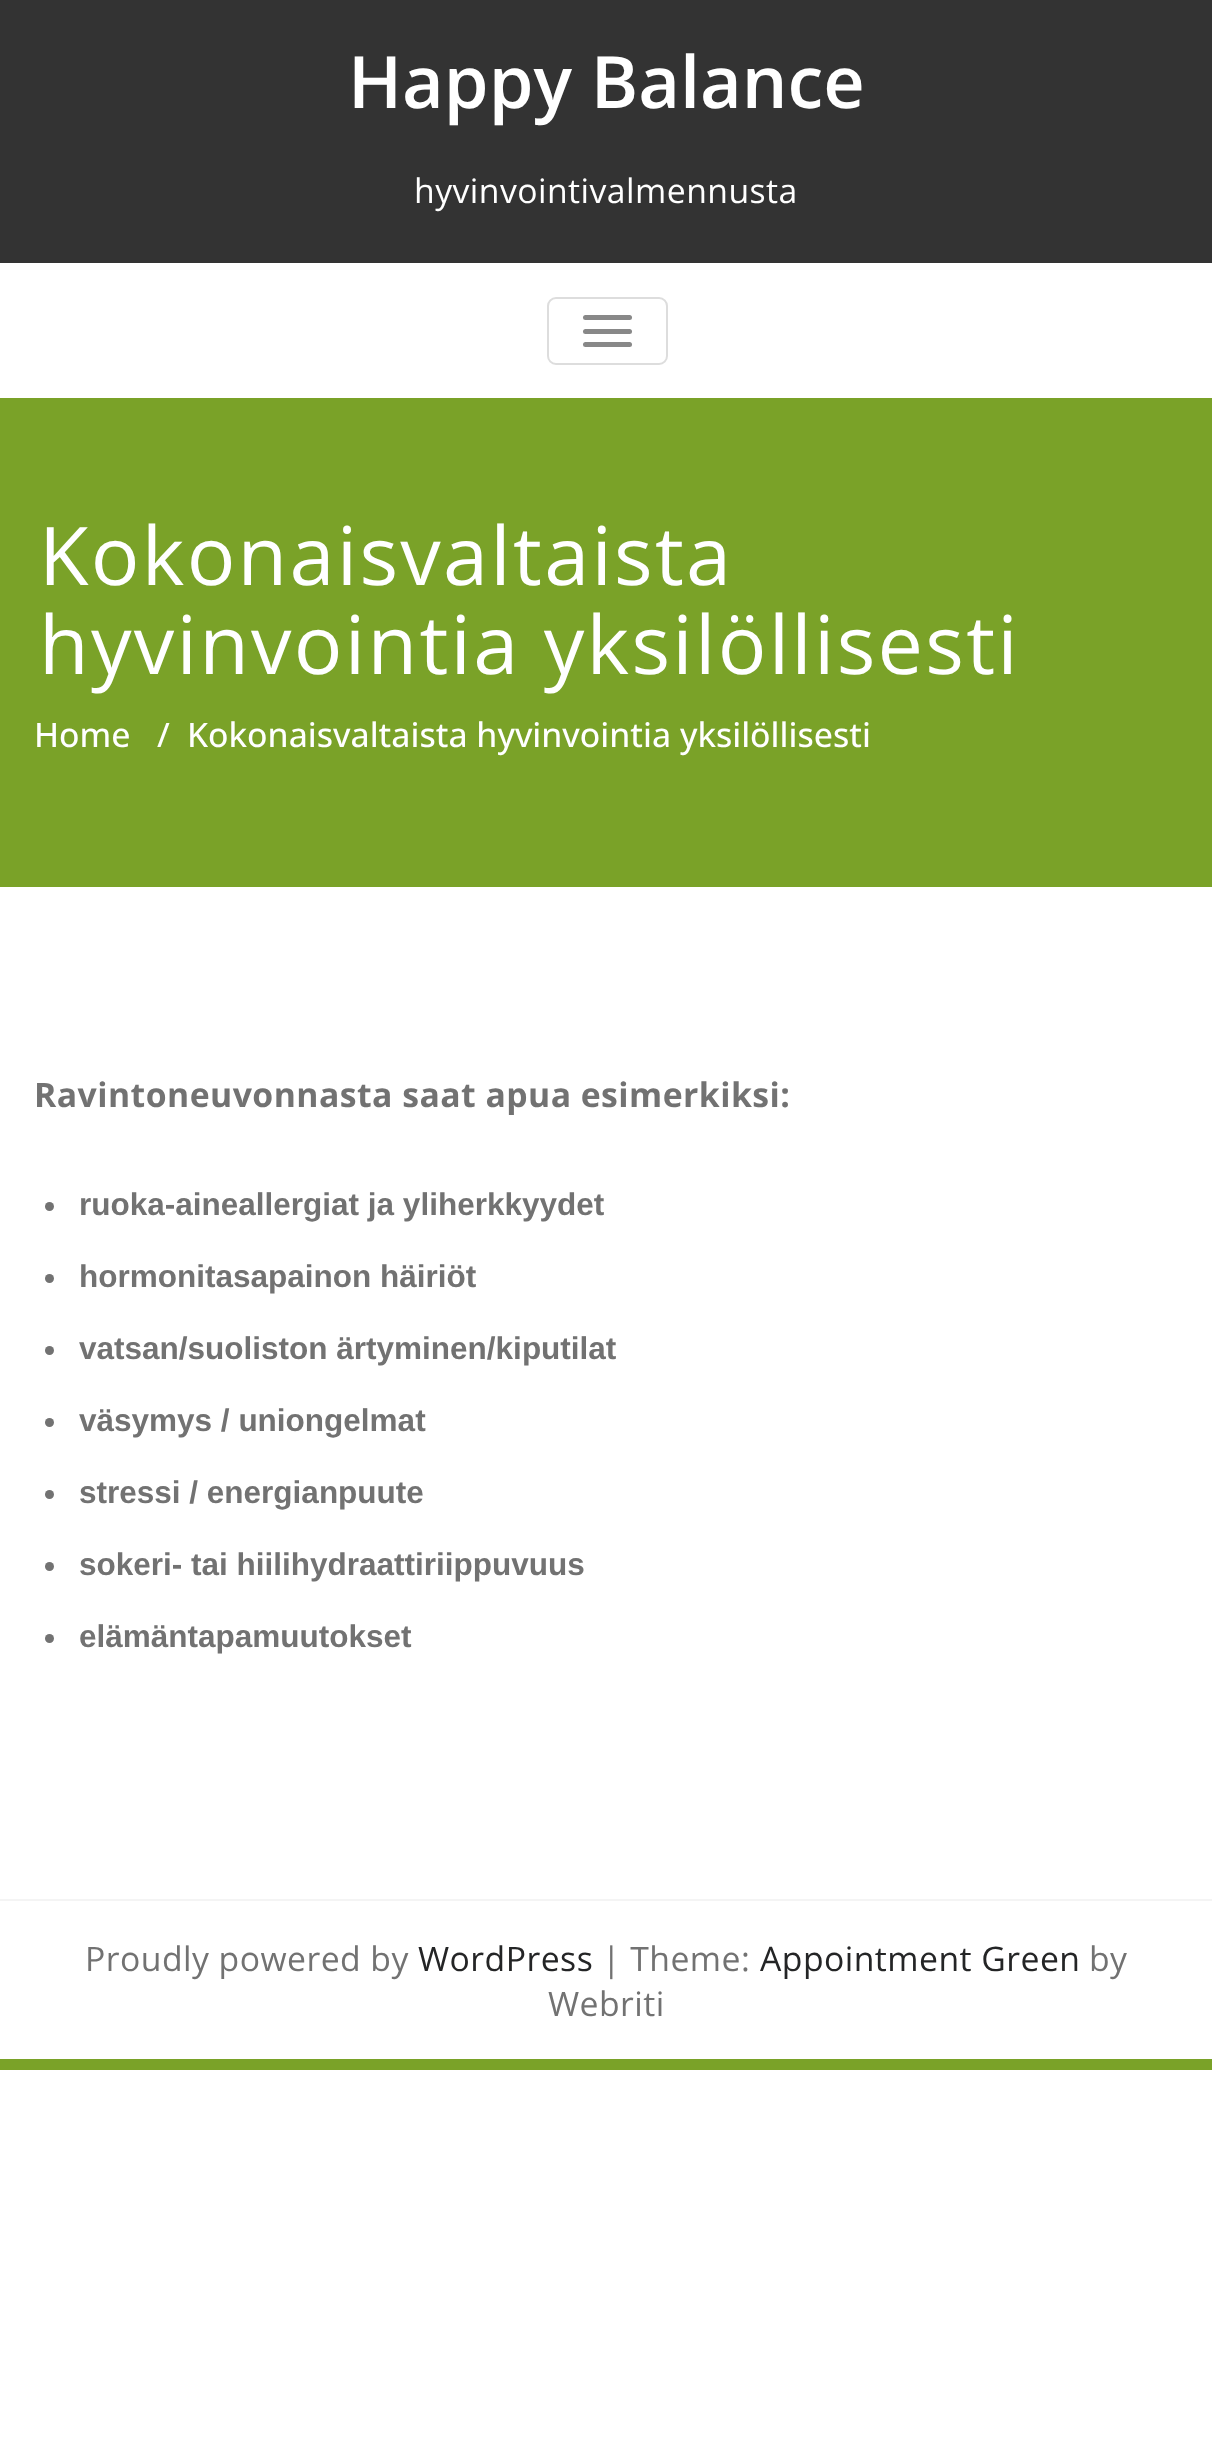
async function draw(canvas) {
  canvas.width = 1212
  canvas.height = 2464
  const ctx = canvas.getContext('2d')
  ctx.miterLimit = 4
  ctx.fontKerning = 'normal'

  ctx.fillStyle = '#fff'
  ctx.fillRect(0, 0, 1212, 2464)
  ctx.fillStyle = '#333'
  ctx.fillRect(0, 0, 1212, 263)
  ctx.font = '600 72px Open Sans'
  ctx.fillStyle = '#fff'
  ctx.fillText('Happy Balance', 348, 108)
  ctx.letterSpacing = '0.45px'
  ctx.font = '33.75px Open Sans'
  ctx.fillText('hyvinvointivalmennusta', 414, 203)
  ctx.beginPath()
  ctx.roundRect(548, 298, 119, 66, 8)
  ctx.strokeStyle = '#ddd'
  ctx.lineWidth = 2
  ctx.stroke()
  ctx.fillStyle = '#888'
  ctx.beginPath()
  ctx.roundRect(583, 315, 49, 5, 2.5)
  ctx.fill()
  ctx.beginPath()
  ctx.roundRect(583, 329, 49, 5, 2.5)
  ctx.fill()
  ctx.beginPath()
  ctx.roundRect(583, 342, 49, 5, 2.5)
  ctx.fill()
  ctx.fillStyle = '#7aa228'
  ctx.fillRect(0, 398, 1212, 489)
  ctx.letterSpacing = '2.25px'
  ctx.font = '81px Open Sans'
  ctx.fillStyle = '#fff'
  ctx.fillText('Kokonaisvaltaista', 39, 585)
  ctx.fillText('hyvinvointia yksilöllisesti', 39, 674)
  ctx.letterSpacing = '0px'
  ctx.font = '500 33.75px Open Sans'
  ctx.fillText('Home', 34, 747)
  ctx.fillText('/', 157, 747)
  ctx.fillText('Kokonaisvaltaista hyvinvointia yksilöllisesti', 187, 747)
  ctx.letterSpacing = '0.45px'
  ctx.font = 'bold 33.75px Open Sans'
  ctx.fillStyle = '#727272'
  ctx.fillText('Ravintoneuvonnasta saat apua esimerkiksi:', 34, 1107)
  ctx.beginPath()
  ctx.arc(49.5, 1206.5, 4.5, 0, 2 * Math.PI)
  ctx.fill()
  ctx.letterSpacing = '0px'
  ctx.font = 'bold 31.5px Liberation Sans'
  ctx.fillText('ruoka-aineallergiat ja yliherkkyydet', 79, 1215)
  ctx.beginPath()
  ctx.arc(49.5, 1278.5, 4.5, 0, 2 * Math.PI)
  ctx.fill()
  ctx.fillText('hormonitasapainon häiriöt', 79, 1287)
  ctx.beginPath()
  ctx.arc(49.5, 1350.5, 4.5, 0, 2 * Math.PI)
  ctx.fill()
  ctx.fillText('vatsan/suoliston ärtyminen/kiputilat', 79, 1359)
  ctx.beginPath()
  ctx.arc(49.5, 1422.5, 4.5, 0, 2 * Math.PI)
  ctx.fill()
  ctx.fillText('väsymys / uniongelmat', 79, 1431)
  ctx.beginPath()
  ctx.arc(49.5, 1494.5, 4.5, 0, 2 * Math.PI)
  ctx.fill()
  ctx.fillText('stressi / energianpuute', 79, 1503)
  ctx.beginPath()
  ctx.arc(49.5, 1566.5, 4.5, 0, 2 * Math.PI)
  ctx.fill()
  ctx.fillText('sokeri- tai hiilihydraattiriippuvuus', 79, 1575)
  ctx.beginPath()
  ctx.arc(49.5, 1638.5, 4.5, 0, 2 * Math.PI)
  ctx.fill()
  ctx.fillText('elämäntapamuutokset', 79, 1647)
  ctx.fillStyle = '#f4f4f4'
  ctx.fillRect(0, 1899, 1212, 2)
  ctx.fillStyle = '#7aa228'
  ctx.fillRect(0, 2059, 1212, 11)
  ctx.letterSpacing = '0.45px'
  ctx.font = '33.75px Open Sans'
  ctx.fillStyle = '#727272'
  ctx.fillText('Proudly powered by', 85, 1971)
  ctx.fillStyle = '#242526'
  ctx.fillText('WordPress', 418, 1971)
  ctx.fillStyle = '#727272'
  ctx.fillText('| Theme:', 602, 1971)
  ctx.fillStyle = '#242526'
  ctx.fillText('Appointment Green', 760, 1971)
  ctx.fillStyle = '#727272'
  ctx.fillText('by', 1089, 1971)
  ctx.fillText('Webriti', 548, 2016)
}

draw(document.querySelector('canvas'))
